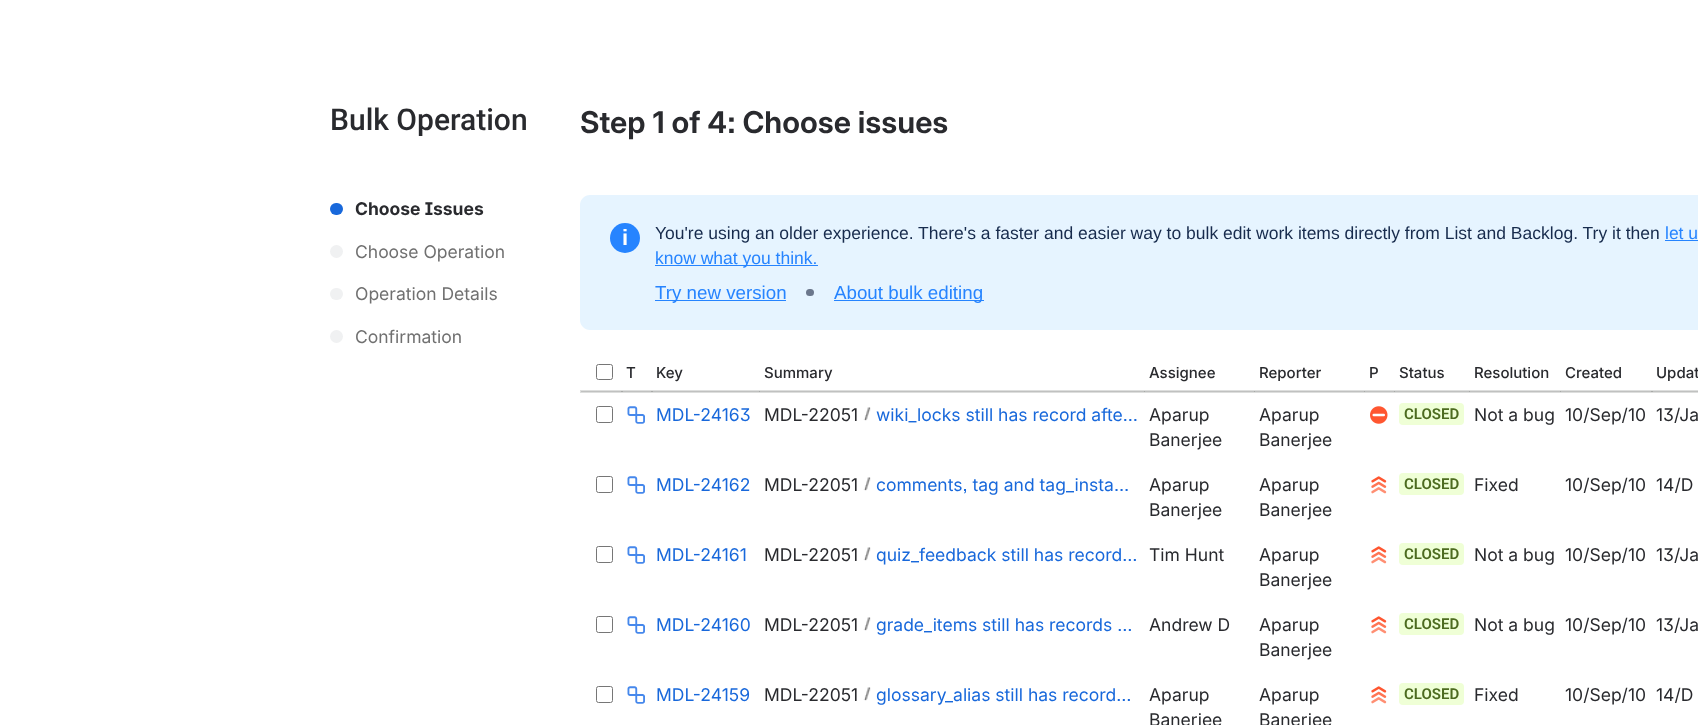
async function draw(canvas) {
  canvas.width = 1698
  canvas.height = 725
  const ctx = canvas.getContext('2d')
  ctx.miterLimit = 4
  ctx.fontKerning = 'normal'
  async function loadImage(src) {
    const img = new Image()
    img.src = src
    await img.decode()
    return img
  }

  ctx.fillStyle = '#fff'
  ctx.fillRect(0, 0, 1698, 725)
  ctx.fillStyle = '#dddedd'
  ctx.fillRect(580, 390, 1118, 3)
  ctx.fillStyle = '#c0c1c0'
  ctx.fillRect(581, 391, 1117, 1)
  ctx.fillStyle = '#a7a9a7'
  ctx.fillRect(621, 391, 2, 1)
  ctx.fillRect(651, 391, 2, 1)
  ctx.fillRect(759, 391, 1, 1)
  ctx.fillRect(1144, 391, 1, 1)
  ctx.fillRect(1254, 391, 1, 1)
  ctx.fillRect(1364, 391, 1, 1)
  ctx.fillRect(1394, 391, 1, 1)
  ctx.fillRect(1469, 391, 1, 1)
  ctx.fillRect(1560, 391, 1, 1)
  ctx.font = '500 30px Roboto'
  ctx.fillStyle = '#292a2e'
  ctx.fillText('Bulk Operation', 330, 130)
  ctx.fillStyle = '#1868db'
  ctx.beginPath()
  ctx.roundRect(330, 203, 13, 12, 6)
  ctx.fill()
  ctx.font = 'bold 17.5px "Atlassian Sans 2"'
  ctx.fillStyle = '#292a2e'
  ctx.fillText('Choose Issues', 355, 215)
  ctx.fillStyle = '#f0f1f2'
  ctx.beginPath()
  ctx.arc(336.5, 251.5, 6.5, 0, 2 * Math.PI)
  ctx.fill()
  ctx.font = '17.5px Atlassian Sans'
  ctx.fillStyle = '#707070'
  ctx.fillText('Choose Operation', 355, 258)
  ctx.fillStyle = '#f0f1f2'
  ctx.beginPath()
  ctx.roundRect(330, 288, 13, 12, 6)
  ctx.fill()
  ctx.fillStyle = '#707070'
  ctx.fillText('Operation Details', 355, 300)
  ctx.fillStyle = '#f0f1f2'
  ctx.beginPath()
  ctx.arc(336.5, 336.5, 6.5, 0, 2 * Math.PI)
  ctx.fill()
  ctx.fillStyle = '#707070'
  ctx.fillText('Confirmation', 355, 343)
  ctx.font = 'bold 30px Atlassian Sans'
  ctx.fillStyle = '#292a2e'
  ctx.fillText('Step 1 of 4: Choose issues', 580, 133)
  ctx.fillStyle = '#e6f4ff'
  ctx.beginPath()
  ctx.moveTo(590, 195)
  ctx.lineTo(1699, 195)
  ctx.lineTo(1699, 330)
  ctx.lineTo(590, 330)
  ctx.bezierCurveTo(584.5, 330, 580, 325.5, 580, 320)
  ctx.lineTo(580, 205)
  ctx.bezierCurveTo(580, 199.5, 584.5, 195, 590, 195)
  ctx.closePath()
  ctx.fill()
  ctx.fillStyle = '#2684ff'
  ctx.beginPath()
  ctx.arc(625, 238, 15, 0, 2 * Math.PI)
  ctx.fill()
  ctx.font = 'bold 22px Liberation Sans'
  ctx.fillStyle = '#fff'
  ctx.fillText('i', 622, 245)
  ctx.font = '17.5px Liberation Sans'
  ctx.fillStyle = '#172b4d'
  ctx.fillText('You\'re using an older experience. There\'s a faster and easier way to bulk edit work items directly from List and Backlog. Try it then', 655, 239)
  ctx.fillStyle = '#2684ff'
  ctx.fillText('let u', 1665, 239)
  ctx.fillRect(1665, 240, 33, 1)
  ctx.fillRect(655, 265, 163, 1)
  ctx.fillText('know what you think.', 655, 264)
  ctx.fillRect(655, 300, 131, 1)
  ctx.font = '18.75px Liberation Sans'
  ctx.fillText('Try new version', 655, 299)
  ctx.fillStyle = '#6b778c'
  ctx.beginPath()
  ctx.roundRect(806, 289, 8, 7, 3.5)
  ctx.fill()
  ctx.fillStyle = '#2684ff'
  ctx.fillRect(834, 300, 150, 1)
  ctx.fillText('About bulk editing', 834, 299)
  ctx.beginPath()
  ctx.roundRect(596.5, 364.5, 16, 15, 2)
  ctx.strokeStyle = '#767676'
  ctx.stroke()
  ctx.font = '500 15px Atlassian Sans'
  ctx.fillStyle = '#292a2e'
  ctx.fillText('T', 626, 378)
  ctx.fillText('Key', 656, 378)
  ctx.fillText('Summary', 764, 378)
  ctx.fillText('Assignee', 1149, 378)
  ctx.fillText('Reporter', 1259, 378)
  ctx.fillText('P', 1369, 378)
  ctx.fillText('Status', 1399, 378)
  ctx.fillText('Resolution', 1474, 378)
  ctx.fillText('Created', 1565, 378)
  ctx.fillStyle = '#a7a9a7'
  ctx.fillRect(1651, 391, 2, 1)
  ctx.fillStyle = '#292a2e'
  ctx.fillText('Updat', 1656, 378)
  ctx.beginPath()
  ctx.roundRect(596.5, 406.5, 16, 16, 2)
  ctx.stroke()
  ctx.drawImage(await loadImage('image0.png'), 627, 406, 18, 18)
  ctx.font = '17.5px Atlassian Sans'
  ctx.fillStyle = '#1868db'
  ctx.fillText('MDL-24163', 656, 421)
  ctx.fillStyle = '#292a2e'
  ctx.fillText('MDL-22051', 764, 421)
  ctx.drawImage(await loadImage('image1.png'), 863, 407, 8, 14)
  ctx.fillStyle = '#1868db'
  ctx.fillText('wiki_locks still has record afte…', 876, 421)
  ctx.fillStyle = '#292a2e'
  ctx.fillText('Aparup', 1149, 421)
  ctx.fillText('Banerjee', 1149, 446)
  ctx.fillText('Aparup', 1259, 421)
  ctx.fillText('Banerjee', 1259, 446)
  ctx.drawImage(await loadImage('image2.png'), 1370, 406, 18, 18)
  ctx.fillStyle = '#efffd6'
  ctx.beginPath()
  ctx.roundRect(1399, 403, 65, 22, 4)
  ctx.fill()
  ctx.font = '600 15px Roboto'
  ctx.fillStyle = '#4c6b1f'
  ctx.fillText('CLOSED', 1404, 419)
  ctx.font = '17.5px Atlassian Sans'
  ctx.fillStyle = '#292a2e'
  ctx.fillText('Not a bug', 1474, 421)
  ctx.fillText('10/Sep/10', 1565, 421)
  ctx.fillText('13/Ja', 1656, 421)
  ctx.beginPath()
  ctx.roundRect(596.5, 476.5, 16, 16, 2)
  ctx.stroke()
  ctx.drawImage(await loadImage('image0.png'), 627, 476, 18, 18)
  ctx.fillStyle = '#1868db'
  ctx.fillText('MDL-24162', 656, 491)
  ctx.fillStyle = '#292a2e'
  ctx.fillText('MDL-22051', 764, 491)
  ctx.drawImage(await loadImage('image1.png'), 863, 477, 8, 14)
  ctx.fillStyle = '#1868db'
  ctx.fillText('comments, tag and tag_insta…', 876, 491)
  ctx.fillStyle = '#292a2e'
  ctx.fillText('Aparup', 1149, 491)
  ctx.fillText('Banerjee', 1149, 516)
  ctx.fillText('Aparup', 1259, 491)
  ctx.fillText('Banerjee', 1259, 516)
  ctx.drawImage(await loadImage('image3.png'), 1371, 476, 16, 18)
  ctx.fillStyle = '#efffd6'
  ctx.beginPath()
  ctx.roundRect(1399, 473, 65, 22, 4)
  ctx.fill()
  ctx.font = '600 15px Roboto'
  ctx.fillStyle = '#4c6b1f'
  ctx.fillText('CLOSED', 1404, 489)
  ctx.font = '17.5px Atlassian Sans'
  ctx.fillStyle = '#292a2e'
  ctx.fillText('Fixed', 1474, 491)
  ctx.fillText('10/Sep/10', 1565, 491)
  ctx.fillText('14/D', 1656, 491)
  ctx.beginPath()
  ctx.roundRect(596.5, 546.5, 16, 16, 2)
  ctx.stroke()
  ctx.drawImage(await loadImage('image0.png'), 627, 546, 18, 18)
  ctx.fillStyle = '#1868db'
  ctx.fillText('MDL-24161', 656, 561)
  ctx.fillStyle = '#292a2e'
  ctx.fillText('MDL-22051', 764, 561)
  ctx.drawImage(await loadImage('image1.png'), 863, 547, 8, 14)
  ctx.fillStyle = '#1868db'
  ctx.fillText('quiz_feedback still has record…', 876, 561)
  ctx.fillStyle = '#292a2e'
  ctx.fillText('Tim Hunt', 1149, 561)
  ctx.fillText('Aparup', 1259, 561)
  ctx.fillText('Banerjee', 1259, 586)
  ctx.drawImage(await loadImage('image3.png'), 1371, 546, 16, 18)
  ctx.fillStyle = '#efffd6'
  ctx.beginPath()
  ctx.roundRect(1399, 543, 65, 22, 4)
  ctx.fill()
  ctx.font = '600 15px Roboto'
  ctx.fillStyle = '#4c6b1f'
  ctx.fillText('CLOSED', 1404, 559)
  ctx.font = '17.5px Atlassian Sans'
  ctx.fillStyle = '#292a2e'
  ctx.fillText('Not a bug', 1474, 561)
  ctx.fillText('10/Sep/10', 1565, 561)
  ctx.fillText('13/Ja', 1656, 561)
  ctx.beginPath()
  ctx.roundRect(596.5, 616.5, 16, 16, 2)
  ctx.stroke()
  ctx.drawImage(await loadImage('image0.png'), 627, 616, 18, 18)
  ctx.fillStyle = '#1868db'
  ctx.fillText('MDL-24160', 656, 631)
  ctx.fillStyle = '#292a2e'
  ctx.fillText('MDL-22051', 764, 631)
  ctx.drawImage(await loadImage('image1.png'), 863, 617, 8, 14)
  ctx.fillStyle = '#1868db'
  ctx.fillText('grade_items still has records …', 876, 631)
  ctx.fillStyle = '#292a2e'
  ctx.fillText('Andrew D', 1149, 631)
  ctx.fillText('Aparup', 1259, 631)
  ctx.fillText('Banerjee', 1259, 656)
  ctx.drawImage(await loadImage('image3.png'), 1371, 616, 16, 18)
  ctx.fillStyle = '#efffd6'
  ctx.beginPath()
  ctx.roundRect(1399, 613, 65, 22, 4)
  ctx.fill()
  ctx.font = '600 15px Roboto'
  ctx.fillStyle = '#4c6b1f'
  ctx.fillText('CLOSED', 1404, 629)
  ctx.font = '17.5px Atlassian Sans'
  ctx.fillStyle = '#292a2e'
  ctx.fillText('Not a bug', 1474, 631)
  ctx.fillText('10/Sep/10', 1565, 631)
  ctx.fillText('13/Ja', 1656, 631)
  ctx.beginPath()
  ctx.roundRect(596.5, 686.5, 16, 16, 2)
  ctx.stroke()
  ctx.drawImage(await loadImage('image0.png'), 627, 686, 18, 18)
  ctx.fillStyle = '#1868db'
  ctx.fillText('MDL-24159', 656, 701)
  ctx.fillStyle = '#292a2e'
  ctx.fillText('MDL-22051', 764, 701)
  ctx.drawImage(await loadImage('image1.png'), 863, 687, 8, 14)
  ctx.fillStyle = '#1868db'
  ctx.fillText('glossary_alias still has record…', 876, 701)
  ctx.fillStyle = '#292a2e'
  ctx.fillText('Aparup', 1149, 701)
  ctx.fillText('Banerjee', 1149, 726)
  ctx.fillText('Aparup', 1259, 701)
  ctx.fillText('Banerjee', 1259, 726)
  ctx.drawImage(await loadImage('image3.png'), 1371, 686, 16, 18)
  ctx.fillStyle = '#efffd6'
  ctx.beginPath()
  ctx.roundRect(1399, 683, 65, 22, 4)
  ctx.fill()
  ctx.font = '600 15px Roboto'
  ctx.fillStyle = '#4c6b1f'
  ctx.fillText('CLOSED', 1404, 699)
  ctx.font = '17.5px Atlassian Sans'
  ctx.fillStyle = '#292a2e'
  ctx.fillText('Fixed', 1474, 701)
  ctx.fillText('10/Sep/10', 1565, 701)
  ctx.fillText('14/D', 1656, 701)
}

draw(document.querySelector('canvas'))
